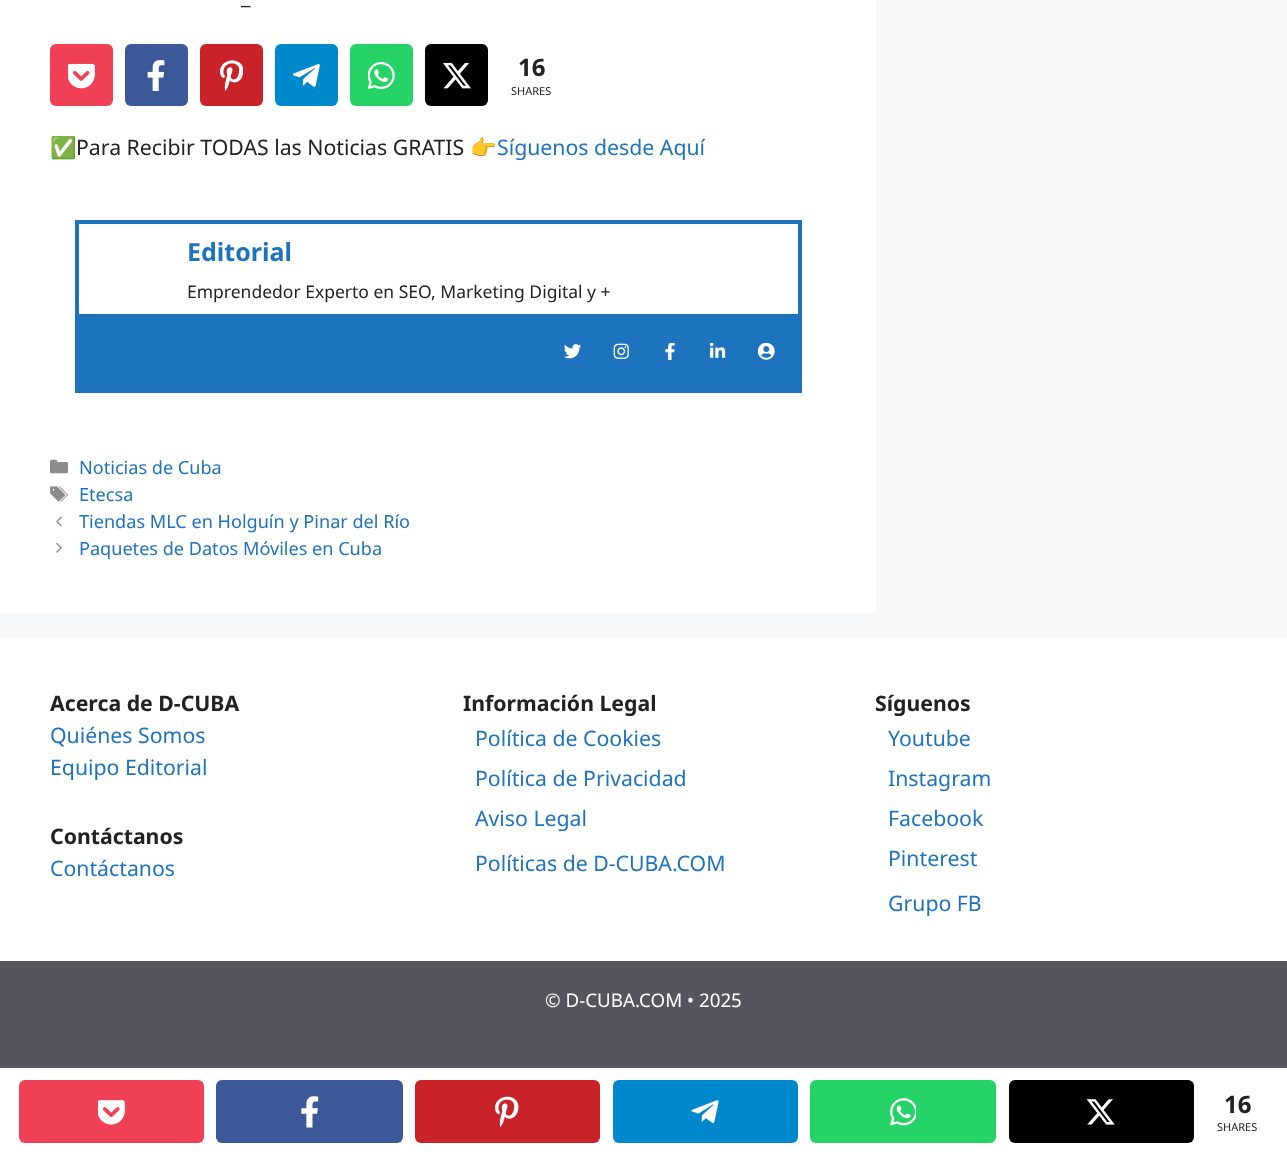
async function draw(canvas) {
  canvas.width = 1287
  canvas.height = 1154
  const ctx = canvas.getContext('2d')
  ctx.miterLimit = 4
  ctx.fontKerning = 'normal'
  async function loadImage(src) {
    const img = new Image()
    img.src = src
    await img.decode()
    return img
  }

  ctx.fillStyle = '#f7f8f9'
  ctx.fillRect(0, 0, 1287, 1154)
  ctx.fillStyle = '#fff'
  ctx.fillRect(0, 0, 876, 613)
  ctx.font = '21.25px Noto Sans'
  ctx.fillStyle = '#222'
  ctx.fillText('_', 241, 4)
  ctx.fillStyle = '#ef4056'
  ctx.beginPath()
  ctx.roundRect(50, 44, 63, 62, 6)
  ctx.fill()
  ctx.drawImage(await loadImage('image0.png'), 68, 63, 27, 26)
  ctx.fillStyle = '#3b5998'
  ctx.beginPath()
  ctx.roundRect(125, 44, 63, 62, 6)
  ctx.fill()
  ctx.drawImage(await loadImage('image1.png'), 147, 60, 18, 31)
  ctx.fillStyle = '#c92228'
  ctx.beginPath()
  ctx.roundRect(200, 44, 63, 62, 6)
  ctx.fill()
  ctx.drawImage(await loadImage('image2.png'), 220, 60, 23, 31)
  ctx.fillStyle = '#08c'
  ctx.beginPath()
  ctx.roundRect(275, 44, 63, 62, 6)
  ctx.fill()
  ctx.drawImage(await loadImage('image3.png'), 293, 64, 27, 23)
  ctx.fillStyle = '#25d366'
  ctx.beginPath()
  ctx.roundRect(350, 44, 63, 62, 6)
  ctx.fill()
  ctx.drawImage(await loadImage('image4.png'), 368, 62, 27, 28)
  ctx.fillStyle = '#000'
  ctx.beginPath()
  ctx.roundRect(425, 44, 63, 62, 6)
  ctx.fill()
  ctx.drawImage(await loadImage('image5.png'), 443, 62, 28, 27)
  ctx.font = 'bold 24px Noto Sans'
  ctx.fillStyle = '#222'
  ctx.fillText('16', 518, 76)
  ctx.font = '11px Noto Sans'
  ctx.fillText('SHARES', 511, 95)
  ctx.font = '21.25px Noto Color Emoji'
  ctx.fillText('✅', 50, 155)
  ctx.font = '21.25px Noto Sans'
  ctx.fillText('Para Recibir TODAS las Noticias GRATIS', 76, 155)
  ctx.font = '21.25px Noto Color Emoji'
  ctx.fillText('👉', 470, 155)
  ctx.font = '21.25px Noto Sans'
  ctx.fillStyle = '#1e73be'
  ctx.fillText('Síguenos desde Aquí', 497, 155)
  ctx.fillRect(75, 220, 726, 4)
  ctx.fillRect(798, 220, 4, 94)
  ctx.fillRect(75, 220, 4, 94)
  ctx.font = 'bold 25px Noto Sans'
  ctx.fillText('Editorial', 187, 261)
  ctx.font = '17.5px Noto Sans'
  ctx.fillStyle = '#222'
  ctx.fillText('Emprendedor Experto en SEO, Marketing Digital y +', 187, 298)
  ctx.fillStyle = '#1e73be'
  ctx.fillRect(75, 314, 727, 79)
  ctx.drawImage(await loadImage('image6.png'), 564, 344, 17, 15)
  ctx.drawImage(await loadImage('image7.png'), 613, 343, 16, 16)
  ctx.drawImage(await loadImage('image8.png'), 665, 343, 10, 17)
  ctx.drawImage(await loadImage('image9.png'), 709, 343, 17, 15)
  ctx.drawImage(await loadImage('image10.png'), 758, 343, 17, 17)
  ctx.drawImage(await loadImage('image11.png'), 50, 459, 18, 15)
  ctx.font = '18.1px Noto Sans'
  ctx.fillText('Noticias de Cuba', 79, 474)
  ctx.drawImage(await loadImage('image12.png'), 50, 486, 18, 16)
  ctx.fillText('Etecsa', 79, 501)
  ctx.drawImage(await loadImage('image13.png'), 56, 516, 6, 11)
  ctx.fillText('Tiendas MLC en Holguín y Pinar del Río', 79, 528)
  ctx.drawImage(await loadImage('image14.png'), 56, 542, 6, 11)
  ctx.fillText('Paquetes de Datos Móviles en Cuba', 79, 555)
  ctx.fillStyle = '#fff'
  ctx.fillRect(0, 638, 1287, 323)
  ctx.font = 'bold 21.25px Noto Sans'
  ctx.fillStyle = '#222'
  ctx.fillText('Acerca de D-CUBA', 50, 711)
  ctx.font = '21.25px Noto Sans'
  ctx.fillStyle = '#1e73be'
  ctx.fillText('Quiénes Somos', 50, 743)
  ctx.fillText('Equipo Editorial', 50, 775)
  ctx.font = 'bold 21.25px Noto Sans'
  ctx.fillStyle = '#222'
  ctx.fillText('Contáctanos', 50, 844)
  ctx.font = '21.25px Noto Sans'
  ctx.fillStyle = '#1e73be'
  ctx.fillText('Contáctanos', 50, 876)
  ctx.font = 'bold 21.25px Noto Sans'
  ctx.fillStyle = '#222'
  ctx.fillText('Información Legal', 463, 711)
  ctx.font = '21.25px Noto Sans'
  ctx.fillStyle = '#1e73be'
  ctx.fillText('Política de Cookies', 475, 746)
  ctx.fillText('Política de Privacidad', 475, 786)
  ctx.fillText('Aviso Legal', 475, 826)
  ctx.fillText('Políticas de D-CUBA.COM', 475, 871)
  ctx.font = 'bold 21.25px Noto Sans'
  ctx.fillStyle = '#222'
  ctx.fillText('Síguenos', 875, 711)
  ctx.font = '21.25px Noto Sans'
  ctx.fillStyle = '#1e73be'
  ctx.fillText('Youtube', 888, 746)
  ctx.fillText('Instagram', 888, 786)
  ctx.fillText('Facebook', 888, 826)
  ctx.fillText('Pinterest', 888, 866)
  ctx.fillText('Grupo FB', 888, 911)
  ctx.fillStyle = '#55555e'
  ctx.fillRect(0, 961, 1287, 107)
  ctx.font = '18.75px Noto Sans'
  ctx.fillStyle = '#fff'
  ctx.fillText('© D-CUBA.COM • 2025', 545, 1007)
  ctx.fillRect(0, 1068, 1287, 86)
  ctx.fillStyle = '#ef4056'
  ctx.beginPath()
  ctx.roundRect(19, 1080, 185, 63, 6)
  ctx.fill()
  ctx.drawImage(await loadImage('image15.png'), 98, 1100, 27, 25)
  ctx.fillStyle = '#3b5998'
  ctx.beginPath()
  ctx.roundRect(216, 1080, 187, 63, 6)
  ctx.fill()
  ctx.drawImage(await loadImage('image16.png'), 301, 1096, 18, 32)
  ctx.fillStyle = '#c92228'
  ctx.beginPath()
  ctx.roundRect(415, 1080, 185, 63, 6)
  ctx.fill()
  ctx.drawImage(await loadImage('image17.png'), 495, 1096, 24, 31)
  ctx.fillStyle = '#08c'
  ctx.beginPath()
  ctx.roundRect(613, 1080, 185, 63, 6)
  ctx.fill()
  ctx.drawImage(await loadImage('image18.png'), 691, 1100, 28, 24)
  ctx.fillStyle = '#25d366'
  ctx.beginPath()
  ctx.roundRect(810, 1080, 186, 63, 6)
  ctx.fill()
  ctx.drawImage(await loadImage('image19.png'), 890, 1098, 26, 28)
  ctx.fillStyle = '#000'
  ctx.beginPath()
  ctx.roundRect(1009, 1080, 185, 63, 6)
  ctx.fill()
  ctx.drawImage(await loadImage('image20.png'), 1086, 1099, 29, 26)
  ctx.font = 'bold 24px Noto Sans'
  ctx.fillStyle = '#222'
  ctx.fillText('16', 1224, 1113)
  ctx.font = '11px Noto Sans'
  ctx.fillText('SHARES', 1217, 1131)
}

draw(document.querySelector('canvas'))
